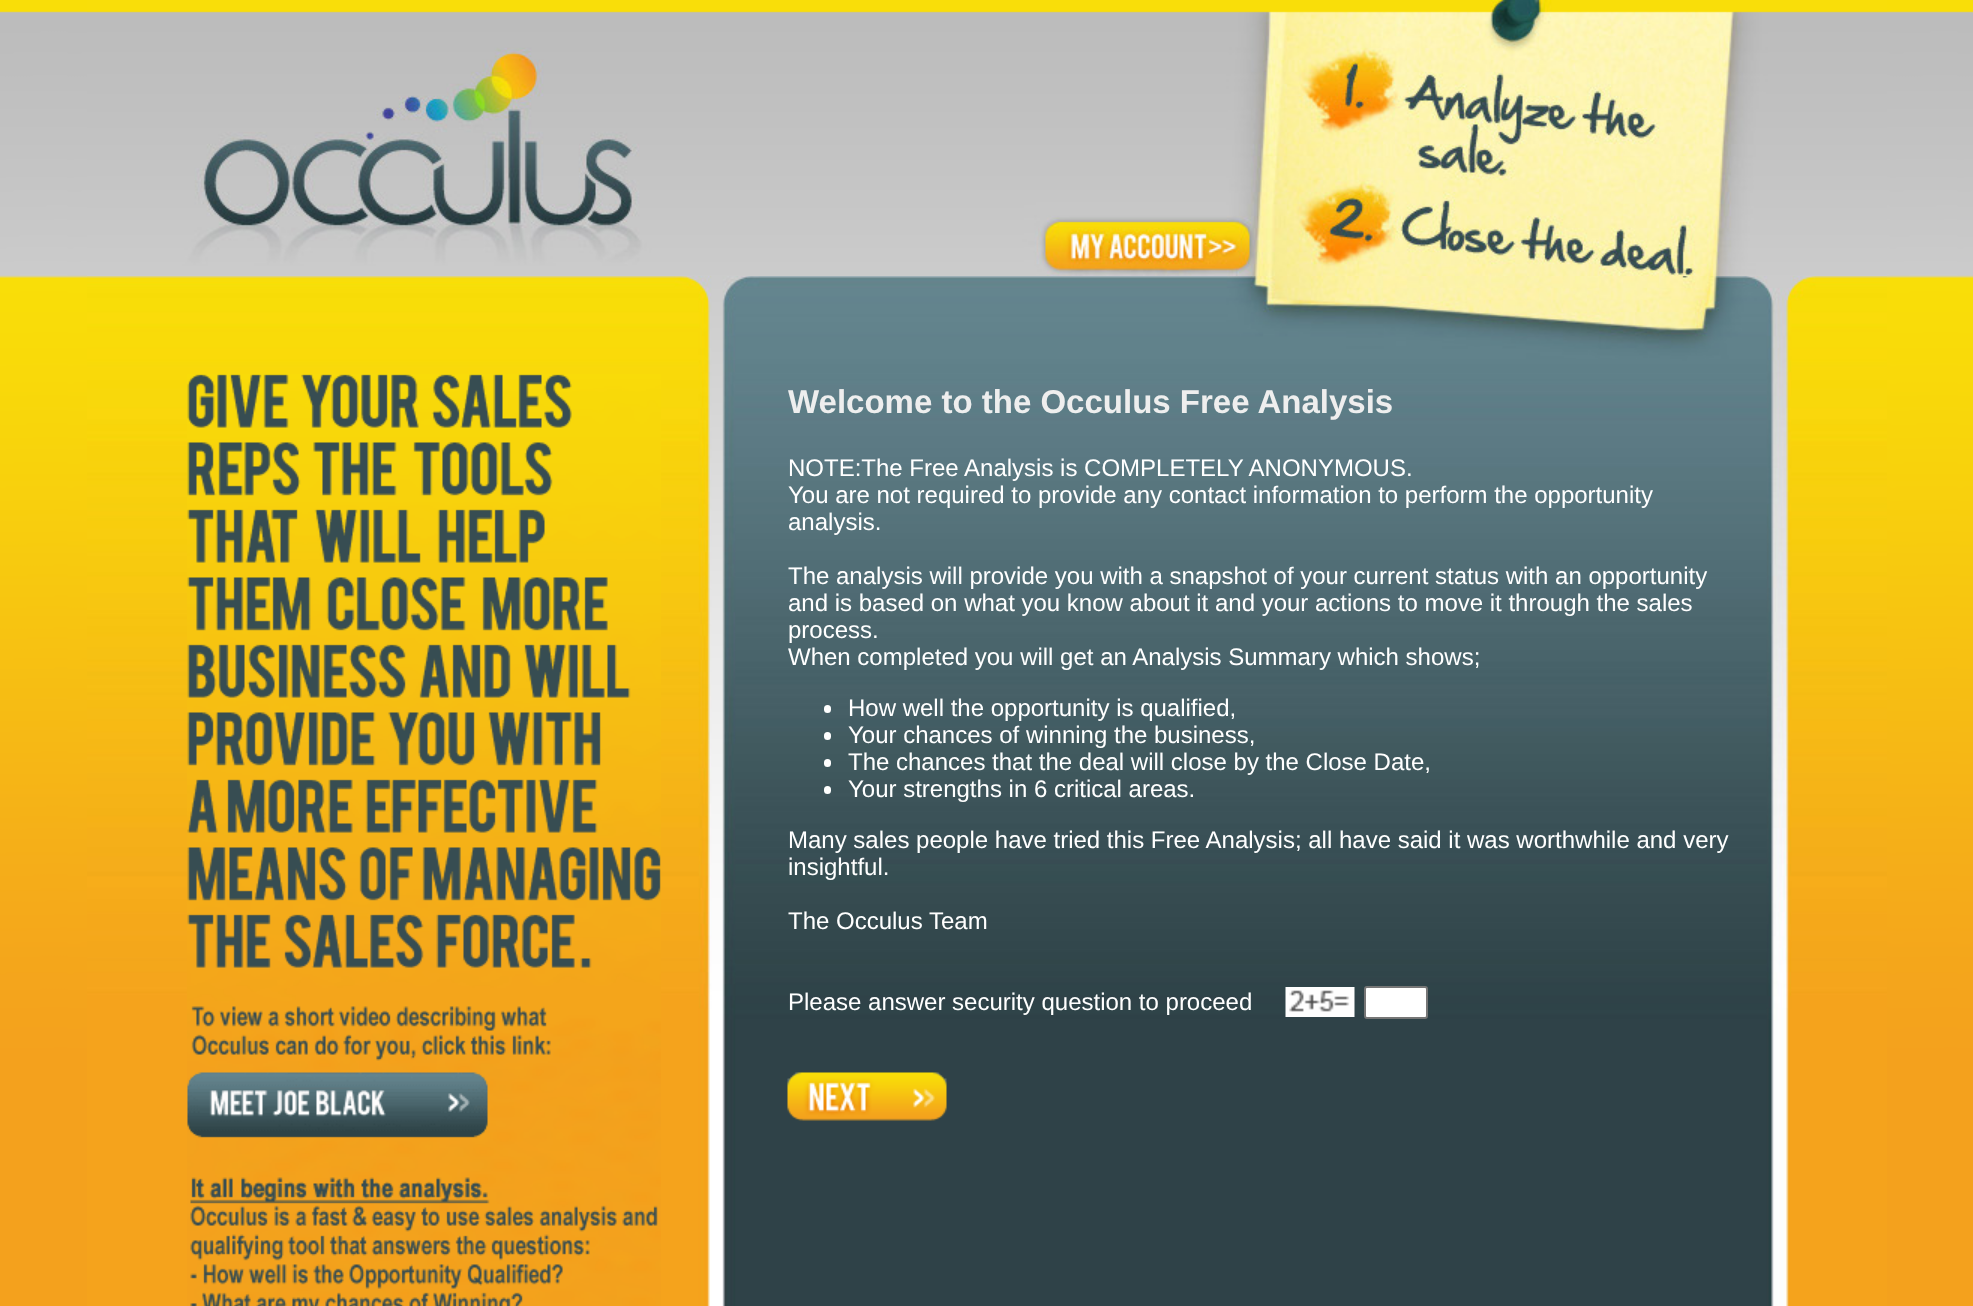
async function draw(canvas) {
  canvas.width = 1973
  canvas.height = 1306
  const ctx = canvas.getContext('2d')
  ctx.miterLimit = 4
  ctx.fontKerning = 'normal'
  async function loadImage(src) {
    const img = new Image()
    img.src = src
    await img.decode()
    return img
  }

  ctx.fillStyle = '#fff'
  ctx.fillRect(0, 0, 1973, 1306)
  ctx.drawImage(await loadImage('image0.png'), 0, 0, 1973, 1306)
  ctx.drawImage(await loadImage('image1.png'), 87, 0, 1800, 276)
  ctx.drawImage(await loadImage('image2.png'), 87, 276, 1800, 1030)
  ctx.drawImage(await loadImage('image3.png'), 187, 374, 474, 932)
  ctx.font = 'bold 33px Liberation Sans'
  ctx.fillStyle = '#eee'
  ctx.fillText('Welcome to the Occulus Free Analysis', 788, 413)
  ctx.font = '24px Liberation Sans'
  ctx.fillStyle = '#fff'
  ctx.fillText('NOTE:The Free Analysis is COMPLETELY ANONYMOUS.', 788, 476)
  ctx.fillText('You are not required to provide any contact information to perform the opportunity', 788, 503)
  ctx.fillText('analysis.', 788, 530)
  ctx.fillText('The analysis will provide you with a snapshot of your current status with an opportunity', 788, 584)
  ctx.fillText('and is based on what you know about it and your actions to move it through the sales', 788, 611)
  ctx.fillText('process.', 788, 638)
  ctx.fillText('When completed you will get an Analysis Summary which shows;', 788, 665)
  ctx.beginPath()
  ctx.roundRect(824, 705, 7, 8, 3.5)
  ctx.fill()
  ctx.fillText('How well the opportunity is qualified,', 848, 716)
  ctx.beginPath()
  ctx.roundRect(824, 732, 7, 8, 3.5)
  ctx.fill()
  ctx.fillText('Your chances of winning the business,', 848, 743)
  ctx.beginPath()
  ctx.roundRect(824, 759, 7, 8, 3.5)
  ctx.fill()
  ctx.fillText('The chances that the deal will close by the Close Date,', 848, 770)
  ctx.beginPath()
  ctx.roundRect(824, 786, 7, 8, 3.5)
  ctx.fill()
  ctx.fillText('Your strengths in 6 critical areas.', 848, 797)
  ctx.fillText('Many sales people have tried this Free Analysis; all have said it was worthwhile and very', 788, 848)
  ctx.fillText('insightful.', 788, 875)
  ctx.fillText('The Occulus Team', 788, 929)
  ctx.fillText('Please answer security question to proceed', 788, 1010)
  ctx.drawImage(await loadImage('image4.png'), 1285, 987, 70, 30)
  ctx.beginPath()
  ctx.roundRect(1365, 987, 62, 31, 2)
  ctx.fill()
  ctx.strokeStyle = '#767676'
  ctx.lineWidth = 2
  ctx.stroke()
  ctx.drawImage(await loadImage('image5.png'), 787, 1072, 160, 49)
}

draw(document.querySelector('canvas'))
